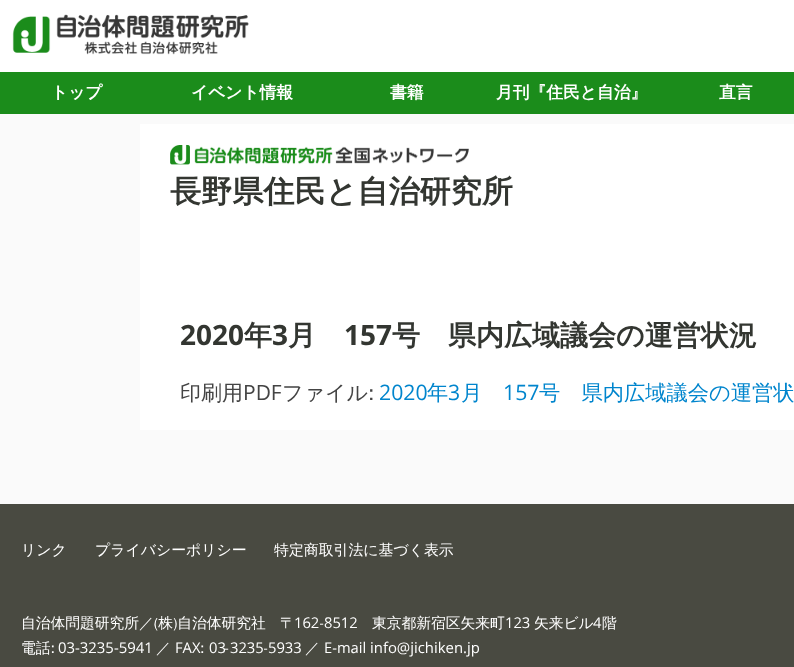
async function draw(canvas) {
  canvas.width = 794
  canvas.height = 667
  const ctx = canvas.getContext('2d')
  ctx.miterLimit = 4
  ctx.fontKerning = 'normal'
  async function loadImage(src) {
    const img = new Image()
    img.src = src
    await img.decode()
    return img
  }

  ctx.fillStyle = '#fff'
  ctx.fillRect(0, 0, 794, 667)
  ctx.drawImage(await loadImage('image0.png'), 12, 14, 237, 41)
  ctx.fillStyle = '#fafafa'
  ctx.fillRect(0, 114, 794, 390)
  ctx.fillStyle = '#1b8c1b'
  ctx.fillRect(0, 72, 794, 42)
  ctx.font = 'bold 16.75px WenQuanYi Zen Hei'
  ctx.fillStyle = '#fff'
  ctx.fillText('トップ', 51, 98)
  ctx.fillText('イベント情報', 191, 98)
  ctx.fillText('書籍', 390, 98)
  ctx.fillText('月刊『住民と自治』', 496, 98)
  ctx.fillText('直言', 719, 98)
  ctx.fillRect(140, 124, 654, 306)
  ctx.drawImage(await loadImage('image1.png'), 170, 144, 299, 21)
  ctx.font = 'bold 31.1px WenQuanYi Zen Hei'
  ctx.fillStyle = '#333631'
  ctx.fillText('長野県住民と自治研究所', 170, 202)
  ctx.font = 'bold 28px Open Sans'
  ctx.fillText('2020', 180, 345)
  ctx.font = 'bold 28px WenQuanYi Zen Hei'
  ctx.fillText('年', 244, 345)
  ctx.font = 'bold 28px Open Sans'
  ctx.fillText('3', 272, 345)
  ctx.font = 'bold 28px WenQuanYi Zen Hei'
  ctx.fillText('月', 288, 345)
  ctx.font = 'bold 28px Open Sans'
  ctx.fillText('157', 344, 345)
  ctx.font = 'bold 28px WenQuanYi Zen Hei'
  ctx.fillText('号　県内広域議会の運営状況', 392, 345)
  ctx.font = '500 21px WenQuanYi Zen Hei'
  ctx.fillStyle = '#444'
  ctx.fillText('印刷用', 180, 400)
  ctx.font = '21px Open Sans'
  ctx.fillText('PDF', 243, 400)
  ctx.font = '500 21px WenQuanYi Zen Hei'
  ctx.fillText('ファイル:', 282, 400)
  ctx.font = '21.25px Open Sans'
  ctx.fillStyle = '#0085cd'
  ctx.fillText('2020', 379, 400)
  ctx.font = '500 21.25px WenQuanYi Zen Hei'
  ctx.fillText('年', 427, 400)
  ctx.font = '21.25px Open Sans'
  ctx.fillText('3', 448, 400)
  ctx.font = '500 21.25px WenQuanYi Zen Hei'
  ctx.fillText('月', 461, 400)
  ctx.font = '21.25px Open Sans'
  ctx.fillText('157', 503, 400)
  ctx.font = '500 21.25px WenQuanYi Zen Hei'
  ctx.fillText('号　県内広域議会の運営状', 539, 400)
  ctx.fillStyle = '#494a41'
  ctx.fillRect(0, 504, 794, 163)
  ctx.font = '500 14.9px WenQuanYi Zen Hei'
  ctx.fillStyle = '#fff'
  ctx.fillText('リンク', 21, 555)
  ctx.fillText('プライバシーポリシー', 95, 555)
  ctx.fillText('特定商取引法に基づく表示', 274, 555)
  ctx.font = '500 14.75px WenQuanYi Zen Hei'
  ctx.fillText('自治体問題研究所／(株)自治体研究社', 21, 628)
  ctx.fillText('〒', 280, 628)
  ctx.font = '14.75px Open Sans'
  ctx.fillText('162', 294, 628)
  ctx.font = '500 14.75px WenQuanYi Zen Hei'
  ctx.fillText('-', 320, 628)
  ctx.font = '14.75px Open Sans'
  ctx.fillText('8512', 324, 628)
  ctx.font = '500 14.75px WenQuanYi Zen Hei'
  ctx.fillText('東京都新宿区矢来町', 372, 628)
  ctx.font = '14.75px Open Sans'
  ctx.fillText('123', 505, 628)
  ctx.font = '500 14.75px WenQuanYi Zen Hei'
  ctx.fillText('矢来ビル', 534, 628)
  ctx.font = '14.75px Open Sans'
  ctx.fillText('4', 593, 628)
  ctx.font = '500 14.75px WenQuanYi Zen Hei'
  ctx.fillText('階', 602, 628)
  ctx.fillText('電話:', 21, 653)
  ctx.font = '14.9px Open Sans'
  ctx.fillText('03-3235-5941', 58, 653)
  ctx.font = '500 14.75px WenQuanYi Zen Hei'
  ctx.fillText('／', 156, 653)
  ctx.font = '14.75px Open Sans'
  ctx.fillText('FAX', 175, 653)
  ctx.font = '500 14.75px WenQuanYi Zen Hei'
  ctx.fillText(':', 200, 653)
  ctx.font = '14.75px Open Sans'
  ctx.fillText('03', 209, 653)
  ctx.font = '500 14.75px WenQuanYi Zen Hei'
  ctx.fillText('-', 225, 653)
  ctx.font = '14.75px Open Sans'
  ctx.fillText('3235', 230, 653)
  ctx.font = '500 14.75px WenQuanYi Zen Hei'
  ctx.fillText('-', 264, 653)
  ctx.font = '14.75px Open Sans'
  ctx.fillText('5933', 268, 653)
  ctx.font = '500 14.75px WenQuanYi Zen Hei'
  ctx.fillText('／', 305, 653)
  ctx.font = '14.75px Open Sans'
  ctx.fillText('E-mail', 324, 653)
  ctx.font = '14.9px Open Sans'
  ctx.fillText('info@jichiken.jp', 370, 653)
}

draw(document.querySelector('canvas'))
